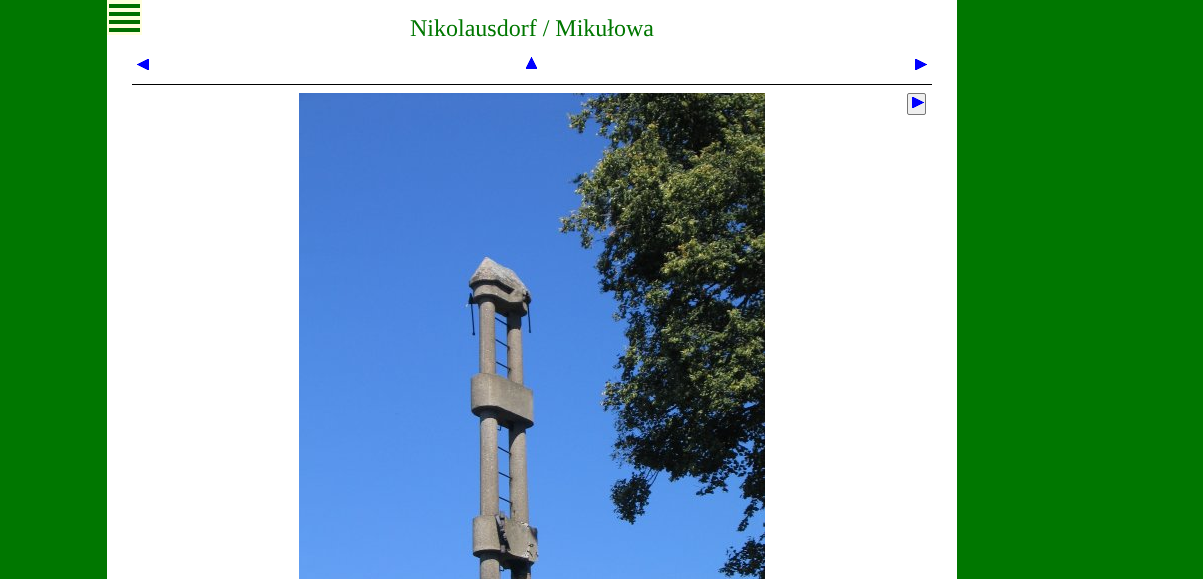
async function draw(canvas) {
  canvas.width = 1203
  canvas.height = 579
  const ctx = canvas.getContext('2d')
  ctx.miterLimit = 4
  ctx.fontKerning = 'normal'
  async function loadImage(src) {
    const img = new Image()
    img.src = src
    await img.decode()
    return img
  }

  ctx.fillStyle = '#070'
  ctx.fillRect(0, 0, 1203, 579)
  ctx.fillStyle = '#fff'
  ctx.fillRect(107, 0, 850, 579)
  ctx.fillStyle = '#ffd'
  ctx.fillRect(107, 0, 35, 35)
  ctx.drawImage(await loadImage('image0.png'), 109, 4, 31, 28)
  ctx.font = '24px Liberation Serif'
  ctx.fillStyle = '#070'
  ctx.fillText('Nikolausdorf / Mikułowa', 410, 36)
  ctx.drawImage(await loadImage('image1.png'), 137, 59, 12, 11)
  ctx.drawImage(await loadImage('image2.png'), 526, 57, 11, 12)
  ctx.drawImage(await loadImage('image3.png'), 915, 59, 12, 11)
  ctx.fillStyle = '#000'
  ctx.fillRect(132, 84, 800, 1)
  ctx.drawImage(await loadImage('image4.png'), 299, 93, 466, 486)
  ctx.fillStyle = '#efefef'
  ctx.beginPath()
  ctx.roundRect(907.5, 93.5, 18, 21, 1.5)
  ctx.fill()
  ctx.strokeStyle = '#767676'
  ctx.stroke()
  ctx.drawImage(await loadImage('image5.png'), 912, 97, 12, 11)
}

draw(document.querySelector('canvas'))
